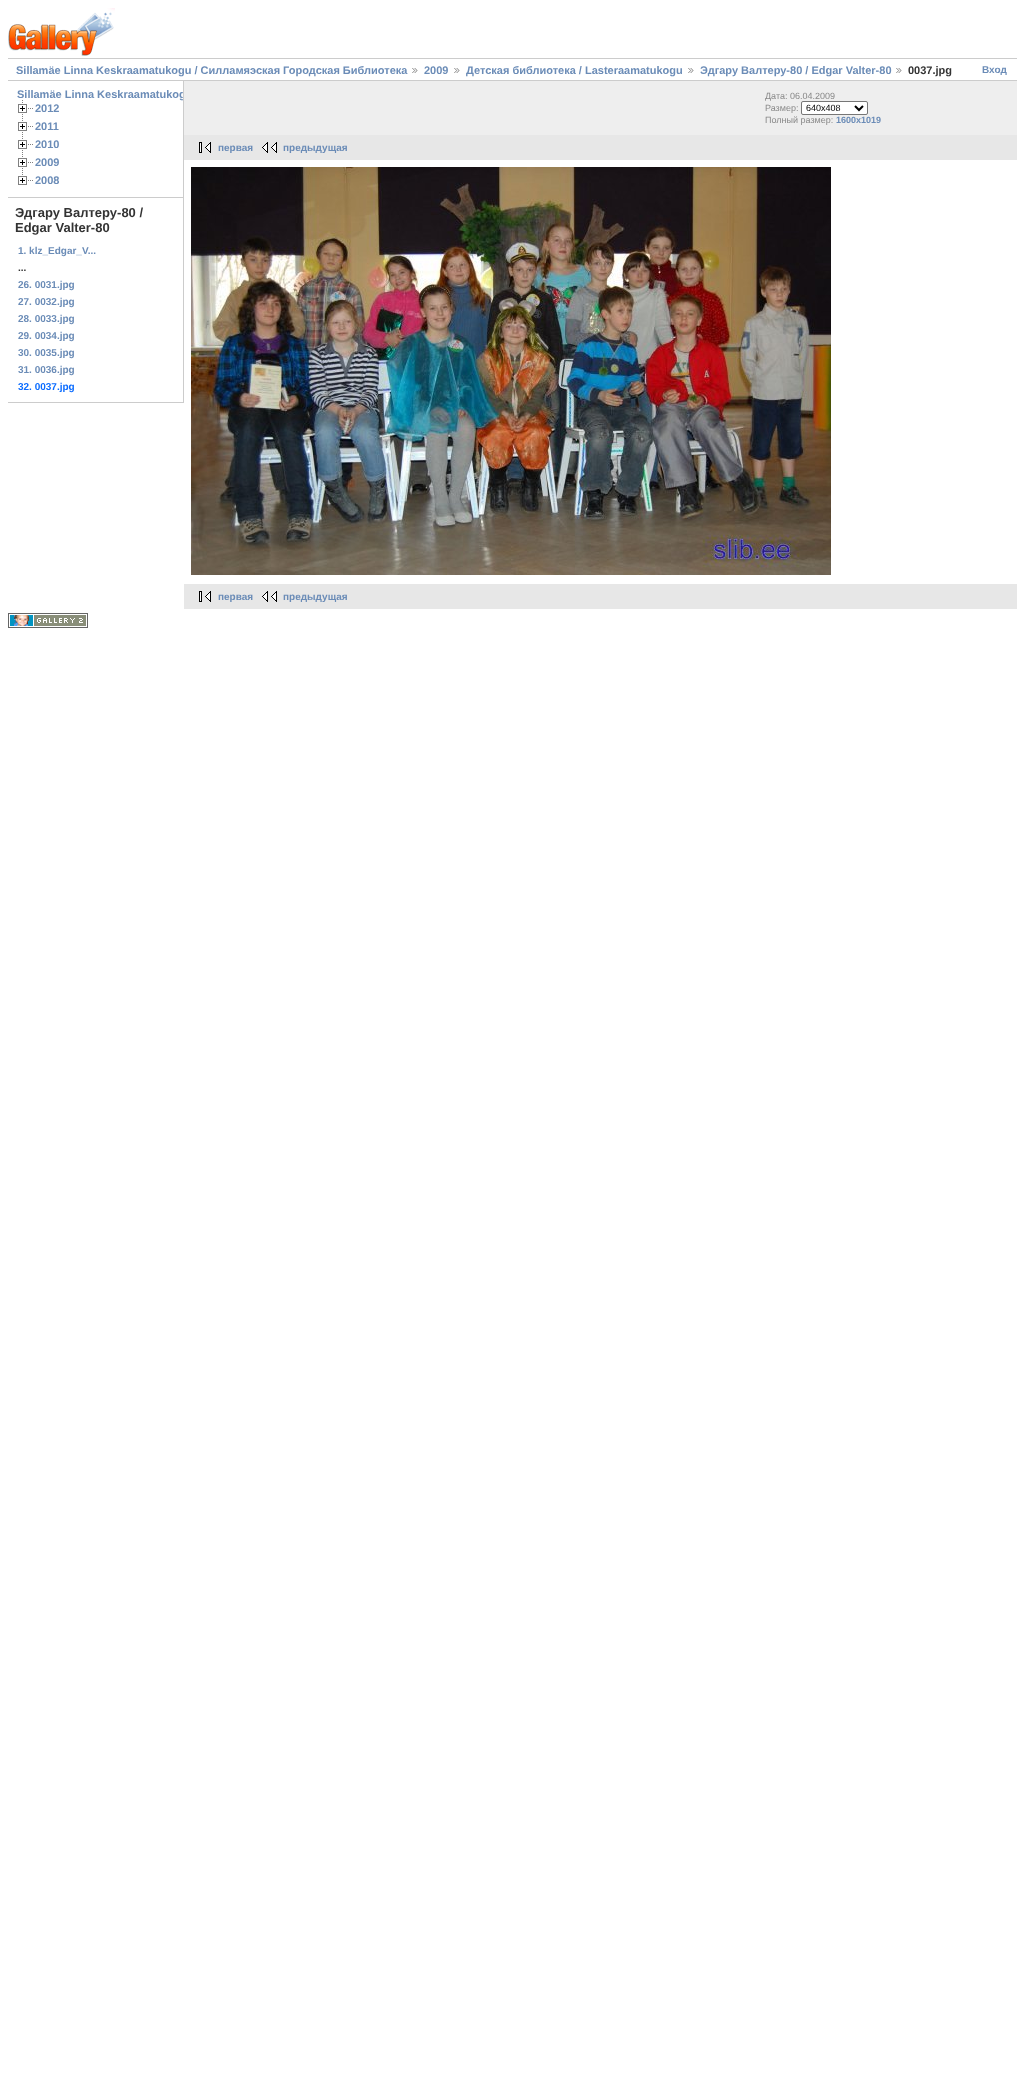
async function draw(canvas) {
  canvas.width = 1025
  canvas.height = 2093
  const ctx = canvas.getContext('2d')
  ctx.miterLimit = 4
  ctx.fontKerning = 'normal'
  async function loadImage(src) {
    const img = new Image()
    img.src = src
    await img.decode()
    return img
  }

  ctx.fillStyle = '#fff'
  ctx.fillRect(0, 0, 1025, 2093)
  ctx.drawImage(await loadImage('image0.png'), 8, 8, 107, 48)
  ctx.fillStyle = '#ccc'
  ctx.fillRect(8, 58, 1009, 1)
  ctx.fillRect(8, 80, 1009, 1)
  ctx.font = 'bold 11px Liberation Sans'
  ctx.fillStyle = '#6b8cb7'
  ctx.fillText('Sillamäe Linna Keskraamatukogu / Силламяэская Городская Библиотека', 16, 74)
  ctx.drawImage(await loadImage('image1.png'), 412, 68, 6, 5)
  ctx.fillText('2009', 424, 74)
  ctx.drawImage(await loadImage('image1.png'), 454, 68, 6, 5)
  ctx.fillText('Детская библиотека / Lasteraamatukogu', 466, 74)
  ctx.drawImage(await loadImage('image1.png'), 688, 68, 6, 5)
  ctx.fillText('Эдгару Валтеру-80 / Edgar Valter-80', 700, 74)
  ctx.drawImage(await loadImage('image1.png'), 896, 68, 6, 5)
  ctx.fillStyle = '#333'
  ctx.fillText('0037.jpg', 908, 74)
  ctx.font = 'bold 10px Liberation Sans'
  ctx.fillStyle = '#6b8cb7'
  ctx.fillText('Вход', 982, 73)
  ctx.fillStyle = '#ccc'
  ctx.fillRect(183, 81, 1, 322)
  ctx.fillRect(8, 197, 175, 1)
  ctx.save()
  ctx.beginPath()
  ctx.rect(8, 81, 175, 322)
  ctx.clip()
  ctx.font = 'bold 11px Liberation Sans'
  ctx.fillStyle = '#6b8cb7'
  ctx.fillText('Sillamäe Linna Keskraamatukog', 17, 98)
  ctx.restore()
  ctx.drawImage(await loadImage('image2.png'), 18, 100, 15, 17)
  ctx.font = 'bold 11px Liberation Sans'
  ctx.fillStyle = '#6b8cb7'
  ctx.fillText('2012', 35, 112)
  ctx.drawImage(await loadImage('image2.png'), 18, 118, 15, 17)
  ctx.fillText('2011', 35, 130)
  ctx.drawImage(await loadImage('image2.png'), 18, 136, 15, 17)
  ctx.fillText('2010', 35, 148)
  ctx.drawImage(await loadImage('image2.png'), 18, 154, 15, 17)
  ctx.fillText('2009', 35, 166)
  ctx.drawImage(await loadImage('image3.png'), 18, 172, 15, 13)
  ctx.fillText('2008', 35, 184)
  ctx.fillStyle = '#ccc'
  ctx.fillRect(8, 402, 175, 1)
  ctx.font = 'bold 13px Liberation Sans'
  ctx.fillStyle = '#333'
  ctx.fillText('Эдгару Валтеру-80 /', 15, 217)
  ctx.fillText('Edgar Valter-80', 15, 232)
  ctx.font = 'bold 10px Liberation Sans'
  ctx.fillStyle = '#6b8cb7'
  ctx.fillText('1. klz_Edgar_V...', 18, 254)
  ctx.fillStyle = '#333'
  ctx.fillText('...', 18, 271)
  ctx.fillStyle = '#6b8cb7'
  ctx.fillText('26. 0031.jpg', 18, 288)
  ctx.fillText('27. 0032.jpg', 18, 305)
  ctx.fillText('28. 0033.jpg', 18, 322)
  ctx.fillText('29. 0034.jpg', 18, 339)
  ctx.fillText('30. 0035.jpg', 18, 356)
  ctx.fillText('31. 0036.jpg', 18, 373)
  ctx.fillStyle = '#0b6cff'
  ctx.fillText('32. 0037.jpg', 18, 390)
  ctx.fillStyle = '#eee'
  ctx.fillRect(184, 81, 833, 54)
  ctx.font = '9px Liberation Sans'
  ctx.fillStyle = '#888'
  ctx.fillText('Дата: 06.04.2009', 765, 99)
  ctx.fillText('Размер:', 765, 111)
  ctx.fillStyle = '#fff'
  ctx.beginPath()
  ctx.roundRect(801.5, 101.5, 66, 13, 1.5)
  ctx.fill()
  ctx.strokeStyle = '#767676'
  ctx.stroke()
  ctx.beginPath()
  ctx.moveTo(855, 106)
  ctx.lineTo(859, 110)
  ctx.lineTo(863, 106)
  ctx.strokeStyle = '#000'
  ctx.lineWidth = 2
  ctx.stroke()
  ctx.fillStyle = '#000'
  ctx.fillText('640x408', 806, 111)
  ctx.fillStyle = '#888'
  ctx.fillText('Полный размер:', 765, 123)
  ctx.font = 'bold 9px Liberation Sans'
  ctx.fillStyle = '#6b8cb7'
  ctx.fillText('1600x1019', 836, 123)
  ctx.fillStyle = '#e7e7e7'
  ctx.fillRect(184, 135, 833, 25)
  ctx.drawImage(await loadImage('image4.png'), 199, 142, 12, 11)
  ctx.font = 'bold 10px Liberation Sans'
  ctx.fillStyle = '#6b8cb7'
  ctx.fillText('первая', 218, 151)
  ctx.drawImage(await loadImage('image5.png'), 262, 142, 15, 11)
  ctx.fillText('предыдущая', 283, 151)
  ctx.drawImage(await loadImage('image6.png'), 191, 167, 640, 408)
  ctx.fillStyle = '#e7e7e7'
  ctx.fillRect(184, 584, 833, 25)
  ctx.drawImage(await loadImage('image4.png'), 199, 591, 12, 11)
  ctx.fillStyle = '#6b8cb7'
  ctx.fillText('первая', 218, 600)
  ctx.drawImage(await loadImage('image5.png'), 262, 591, 15, 11)
  ctx.fillText('предыдущая', 283, 600)
  ctx.drawImage(await loadImage('image7.png'), 8, 613, 80, 15)
}

draw(document.querySelector('canvas'))
